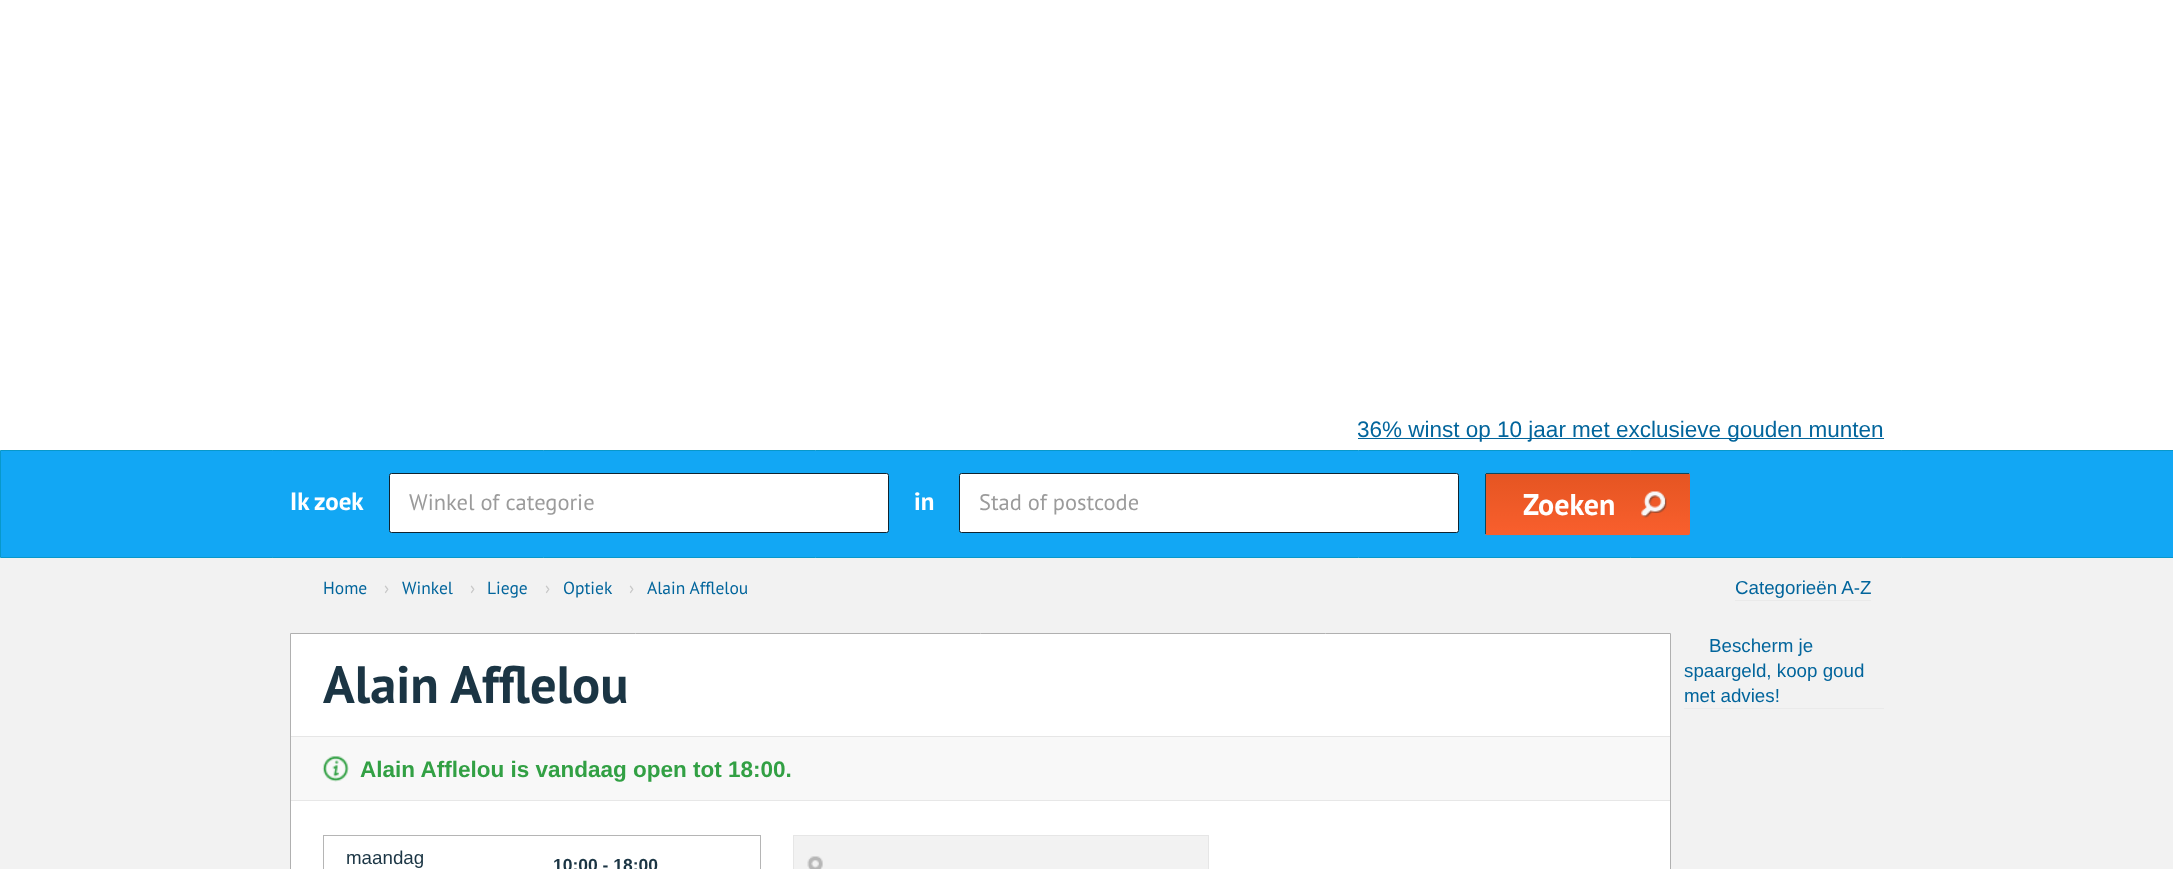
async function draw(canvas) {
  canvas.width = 2173
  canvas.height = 869
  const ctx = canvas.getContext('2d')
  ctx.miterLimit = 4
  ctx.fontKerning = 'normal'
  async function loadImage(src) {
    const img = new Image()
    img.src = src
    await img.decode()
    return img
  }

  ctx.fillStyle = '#fff'
  ctx.fillRect(0, 0, 2173, 869)
  ctx.fillStyle = '#02659c'
  ctx.fillRect(1358, 438, 526, 1)
  ctx.font = '22.5px Liberation Sans'
  ctx.fillText('36% winst op 10 jaar met exclusieve gouden munten', 1357, 437)
  ctx.fillStyle = '#12a7f4'
  ctx.beginPath()
  ctx.rect(0.5, 450.5, 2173, 107)
  ctx.fill()
  ctx.strokeStyle = '#0898ca'
  ctx.stroke()
  ctx.wordSpacing = '-1px'
  ctx.font = 'bold 25px PT Sans'
  ctx.fillStyle = '#fff'
  ctx.fillText('Ik zoek', 290, 510)
  ctx.beginPath()
  ctx.roundRect(389.5, 473.5, 499, 59, 2)
  ctx.fill()
  ctx.strokeStyle = '#0f2430'
  ctx.stroke()
  ctx.wordSpacing = '0px'
  ctx.font = '22.5px PT Sans'
  ctx.fillStyle = '#9b9b9b'
  ctx.fillText('Winkel of categorie', 409, 510)
  ctx.font = 'bold 25px PT Sans'
  ctx.fillStyle = '#fff'
  ctx.fillText('in', 914, 510)
  ctx.beginPath()
  ctx.roundRect(959.5, 473.5, 499, 59, 2)
  ctx.fill()
  ctx.stroke()
  ctx.font = '22.5px PT Sans'
  ctx.fillStyle = '#9b9b9b'
  ctx.fillText('Stad of postcode', 979, 510)
  ctx.drawImage(await loadImage('image0.png'), 1485, 472, 205, 64)
  ctx.fillStyle = '#084960'
  ctx.fillRect(1486, 473, 203, 1)
  ctx.fillRect(1485, 474, 1, 60)
  ctx.font = 'bold 30px PT Sans'
  ctx.fillStyle = '#fff'
  ctx.fillText('Zoeken', 1523, 515)
  ctx.fillStyle = '#f2f2f2'
  ctx.fillRect(0, 558, 2173, 311)
  ctx.font = '17.5px PT Sans'
  ctx.fillStyle = '#02659c'
  ctx.fillText('Home', 323, 594)
  ctx.fillStyle = '#c8c8c8'
  ctx.fillText('›', 384, 594)
  ctx.fillStyle = '#02659c'
  ctx.fillText('Winkel', 402, 594)
  ctx.fillStyle = '#c8c8c8'
  ctx.fillText('›', 470, 594)
  ctx.fillStyle = '#02659c'
  ctx.fillText('Liege', 487, 594)
  ctx.fillStyle = '#c8c8c8'
  ctx.fillText('›', 545, 594)
  ctx.fillStyle = '#02659c'
  ctx.fillText('Optiek', 563, 594)
  ctx.fillStyle = '#c8c8c8'
  ctx.fillText('›', 629, 594)
  ctx.fillStyle = '#02659c'
  ctx.fillText('Alain Afflelou', 647, 594)
  ctx.fillStyle = '#eaeaea'
  ctx.fillRect(1735, 600, 136, 1)
  ctx.font = '18.75px Liberation Sans'
  ctx.fillStyle = '#02659c'
  ctx.fillText('Categorieën A-Z', 1735, 594)
  ctx.fillStyle = '#fff'
  ctx.beginPath()
  ctx.rect(290.5, 633.5, 1380, 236)
  ctx.fill()
  ctx.strokeStyle = '#b0b0b0'
  ctx.stroke()
  ctx.font = 'bold 52.5px PT Sans'
  ctx.fillStyle = '#1b3544'
  ctx.fillText('Alain Afflelou', 323, 703)
  ctx.fillStyle = '#f8f8f8'
  ctx.fillRect(291, 737, 1379, 63)
  ctx.drawImage(await loadImage('image1.png'), 322, 756, 27, 26)
  ctx.fillStyle = '#e6e6e6'
  ctx.fillRect(291, 736, 1379, 1)
  ctx.fillStyle = '#e7e7e7'
  ctx.fillRect(291, 800, 1379, 1)
  ctx.font = 'bold 22.5px Liberation Sans'
  ctx.fillStyle = '#32a044'
  ctx.fillText('Alain Afflelou is vandaag open tot 18:00.', 360, 777)
  ctx.fillStyle = '#b5b5b5'
  ctx.fillRect(323, 835, 438, 1)
  ctx.fillRect(760, 835, 1, 34)
  ctx.fillRect(323, 835, 1, 34)
  ctx.font = '18.75px Liberation Sans'
  ctx.fillStyle = '#1b3544'
  ctx.fillText('maandag', 346, 864)
  ctx.font = 'bold 17.5px Liberation Sans'
  ctx.fillText('10:00 - 18:00', 553, 871)
  ctx.fillStyle = '#f2f2f2'
  ctx.fillRect(794, 836, 414, 33)
  ctx.fillStyle = '#e6e6e6'
  ctx.fillRect(793, 835, 416, 1)
  ctx.fillRect(1208, 835, 1, 34)
  ctx.fillRect(793, 835, 1, 34)
  ctx.drawImage(await loadImage('image2.png'), 807, 856, 16, 13)
  ctx.fillStyle = '#eaeaea'
  ctx.fillRect(1684, 708, 200, 1)
  ctx.font = '18.75px Liberation Sans'
  ctx.fillStyle = '#02659c'
  ctx.fillText('Bescherm je', 1709, 652)
  ctx.fillText('spaargeld, koop goud', 1684, 677)
  ctx.fillText('met advies!', 1684, 702)
}

draw(document.querySelector('canvas'))
